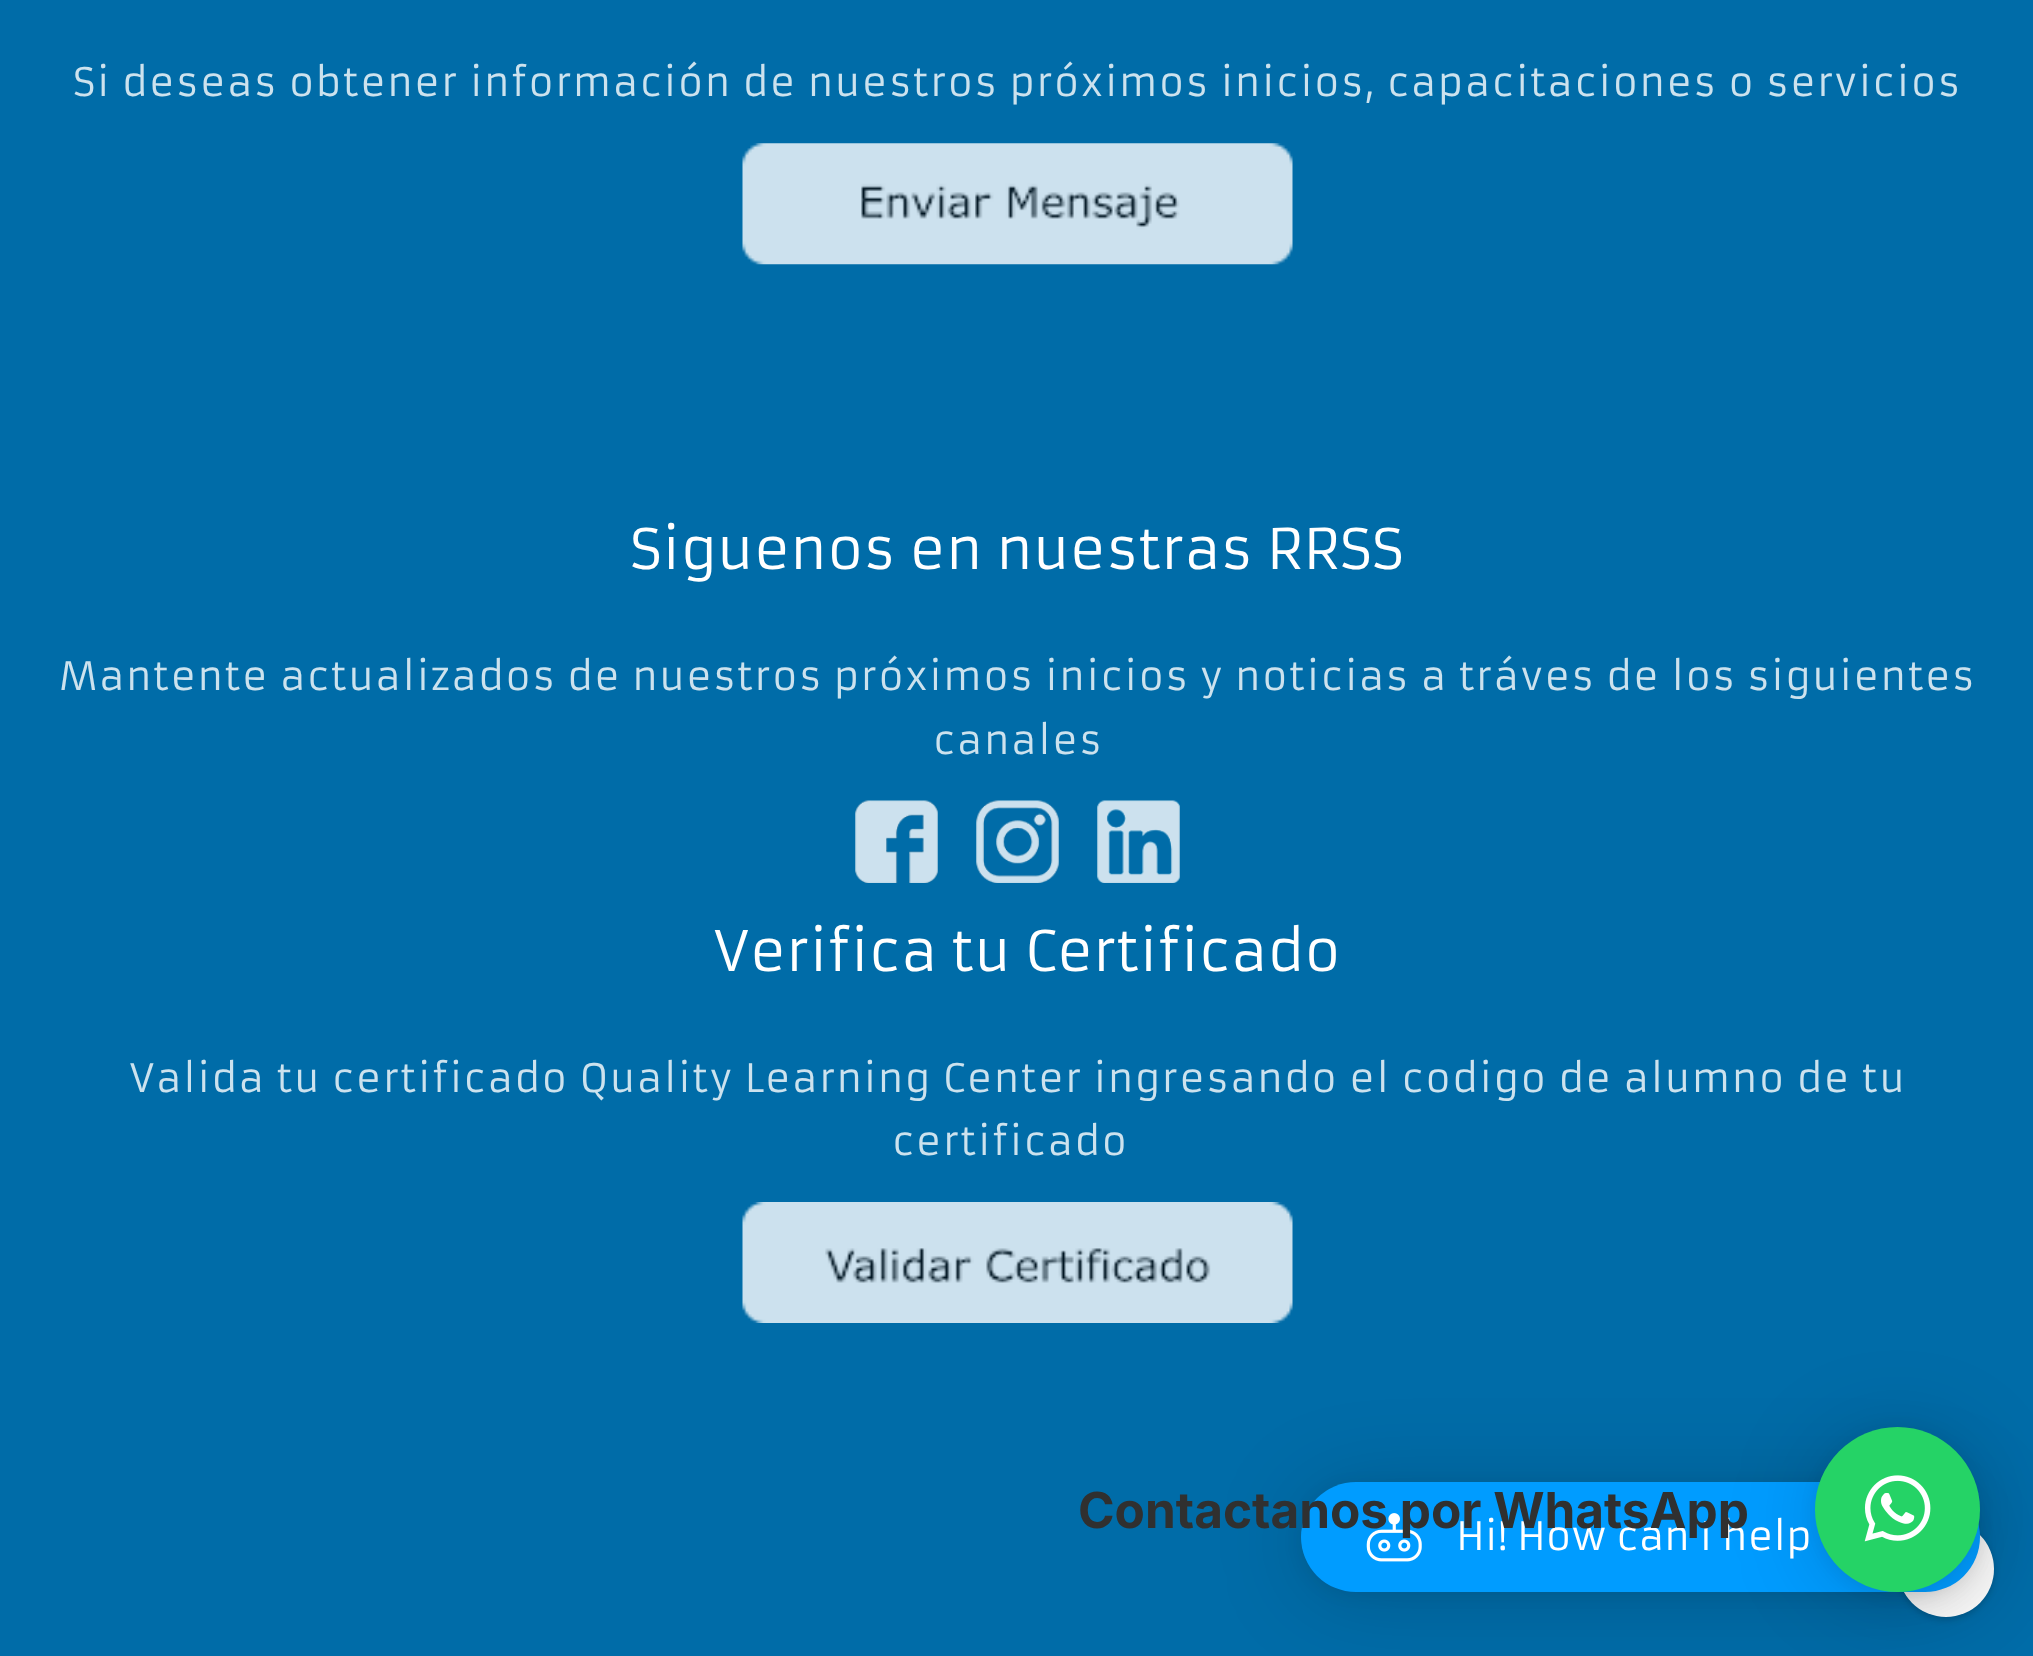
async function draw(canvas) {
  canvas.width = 2033
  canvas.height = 1656
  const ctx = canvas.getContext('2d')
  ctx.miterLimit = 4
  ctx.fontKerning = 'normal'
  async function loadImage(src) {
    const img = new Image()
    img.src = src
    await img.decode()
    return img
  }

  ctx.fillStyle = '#006ca8'
  ctx.fillRect(0, 0, 2033, 1656)
  ctx.letterSpacing = '1.38px'
  ctx.font = '38.5px Armata'
  ctx.fillStyle = '#cce2ee'
  ctx.fillText('Si deseas obtener información de nuestros próximos inicios, capacitaciones o servicios', 73, 96)
  ctx.drawImage(await loadImage('image0.png'), 742, 143, 551, 122)
  ctx.letterSpacing = '0px'
  ctx.font = '55px Armata'
  ctx.fillStyle = '#fff'
  ctx.fillText('Siguenos en nuestras RRSS', 630, 569)
  ctx.letterSpacing = '1.38px'
  ctx.font = '38.5px Armata'
  ctx.fillStyle = '#cce2ee'
  ctx.fillText('Mantente actualizados de nuestros próximos inicios y noticias a tráves de los siguientes', 59, 690)
  ctx.fillText('canales', 933, 754)
  ctx.drawImage(await loadImage('image1.png'), 855, 800, 83, 83)
  ctx.drawImage(await loadImage('image2.png'), 976, 800, 83, 83)
  ctx.drawImage(await loadImage('image3.png'), 1097, 800, 83, 83)
  ctx.letterSpacing = '0px'
  ctx.font = '55px Armata'
  ctx.fillStyle = '#fff'
  ctx.fillText('Verifica tu Certificado', 713, 971)
  ctx.letterSpacing = '1.38px'
  ctx.font = '38.5px Armata'
  ctx.fillStyle = '#cce2ee'
  ctx.fillText('Valida tu certificado Quality Learning Center ingresando el codigo de alumno de tu', 129, 1092)
  ctx.fillText('certificado', 892, 1155)
  ctx.drawImage(await loadImage('image4.png'), 742, 1202, 551, 121)
  ctx.fillStyle = '#0000002b'
  ctx.filter = 'blur(3px)'
  ctx.beginPath()
  ctx.roundRect(1898, 1524, 96, 96, 48)
  ctx.fill()
  ctx.filter = 'none'
  ctx.fillStyle = '#fff'
  ctx.beginPath()
  ctx.arc(1946, 1569, 48, 0, 2 * Math.PI)
  ctx.fill()
  ctx.fillStyle = '#00000029'
  ctx.filter = 'blur(44px)'
  ctx.beginPath()
  ctx.roundRect(1301, 1488, 679, 110, 55)
  ctx.fill()
  ctx.filter = 'none'
  ctx.fillStyle = '#0000000f'
  ctx.filter = 'blur(8px)'
  ctx.beginPath()
  ctx.roundRect(1301, 1485, 679, 110, 55)
  ctx.fill()
  ctx.filter = 'none'
  ctx.fillStyle = '#009cff'
  ctx.beginPath()
  ctx.roundRect(1301, 1482, 679, 110, 55)
  ctx.fill()
  ctx.fillStyle = '#00000029'
  ctx.filter = 'blur(44px)'
  ctx.beginPath()
  ctx.roundRect(1815, 1433, 165, 165, 82.5)
  ctx.fill()
  ctx.filter = 'none'
  ctx.fillStyle = '#0000000f'
  ctx.filter = 'blur(8px)'
  ctx.beginPath()
  ctx.roundRect(1815, 1430, 165, 165, 82.5)
  ctx.fill()
  ctx.filter = 'none'
  ctx.fillStyle = '#25d366'
  ctx.beginPath()
  ctx.arc(1897.5, 1509.5, 82.5, 0, 2 * Math.PI)
  ctx.fill()
  ctx.drawImage(await loadImage('image6.png'), 1366, 1513, 56, 49)
  ctx.letterSpacing = '0px'
  ctx.fillStyle = '#fff'
  ctx.fillText('Hi! How can I help', 1456, 1550)
  ctx.font = 'bold 49.5px Inter'
  ctx.fillStyle = '#303030'
  ctx.fillText('Contactanos por WhatsApp', 1078, 1528)
  ctx.drawImage(await loadImage('image5.png'), 1864, 1475, 67, 67)
}

draw(document.querySelector('canvas'))
